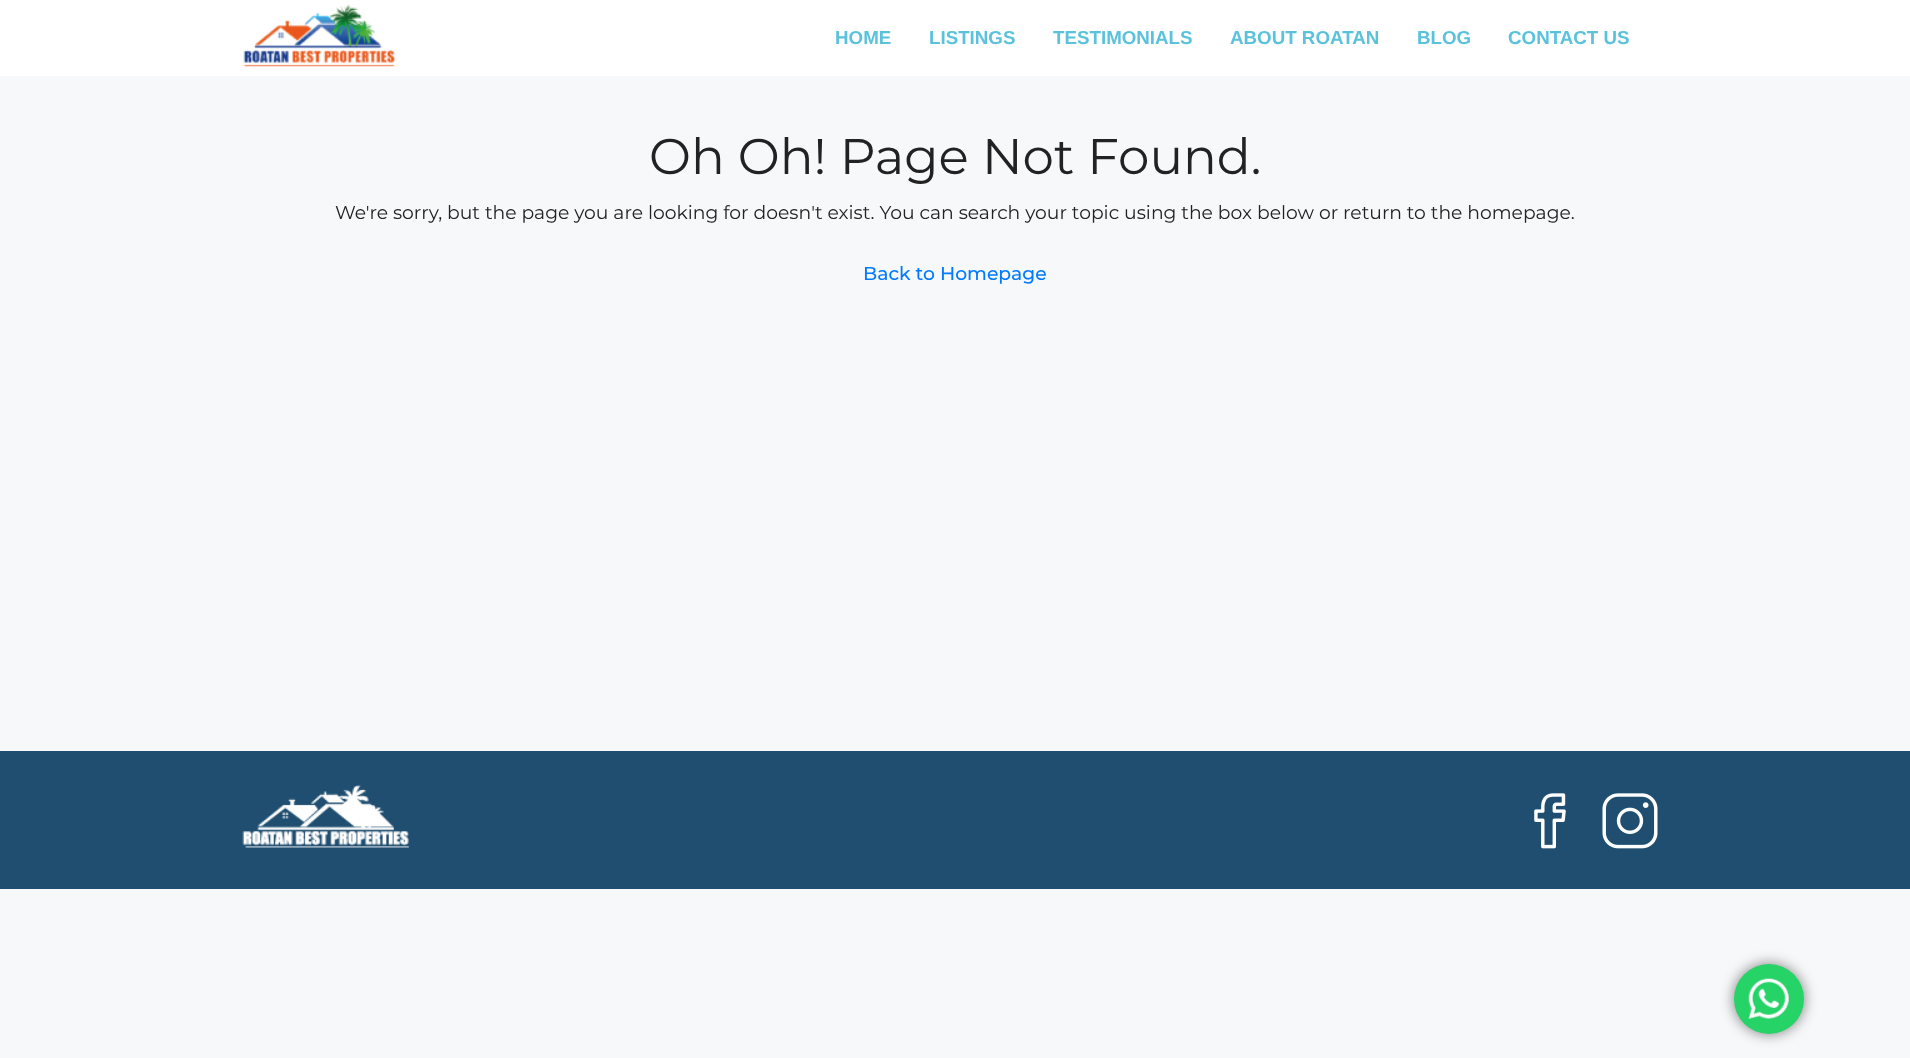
async function draw(canvas) {
  canvas.width = 1910
  canvas.height = 1058
  const ctx = canvas.getContext('2d')
  ctx.miterLimit = 4
  ctx.fontKerning = 'normal'
  async function loadImage(src) {
    const img = new Image()
    img.src = src
    await img.decode()
    return img
  }

  ctx.fillStyle = '#f7f8f9'
  ctx.fillRect(0, 0, 1910, 1058)
  ctx.fillStyle = '#fff'
  ctx.fillRect(0, 0, 1910, 76)
  ctx.drawImage(await loadImage('image0.png'), 243, 4, 152, 63)
  ctx.font = 'bold 18.75px Liberation Sans'
  ctx.fillStyle = '#5bc2dc'
  ctx.fillText('HOME', 835, 44)
  ctx.fillText('LISTINGS', 929, 44)
  ctx.fillText('TESTIMONIALS', 1053, 44)
  ctx.fillText('ABOUT ROATAN', 1230, 44)
  ctx.fillText('BLOG', 1417, 44)
  ctx.fillText('CONTACT US', 1508, 44)
  ctx.font = '50px Montserrat'
  ctx.fillStyle = '#222'
  ctx.fillText('Oh Oh! Page Not Found.', 649, 174)
  ctx.font = '18.75px Montserrat'
  ctx.fillText('We\'re sorry, but the page you are looking for doesn\'t exist. You can search your topic using the box below or return to the homepage.', 335, 219)
  ctx.font = '500 18.75px Montserrat'
  ctx.fillStyle = '#007bff'
  ctx.fillText('Back to Homepage', 863, 280)
  ctx.fillStyle = '#204e70'
  ctx.fillRect(0, 751, 1910, 138)
  ctx.drawImage(await loadImage('image1.png'), 242, 785, 167, 63)
  ctx.drawImage(await loadImage('image2.png'), 1534, 793, 32, 56)
  ctx.drawImage(await loadImage('image3.png'), 1602, 793, 56, 56)
  ctx.fillStyle = '#00000080'
  ctx.filter = 'blur(7px)'
  ctx.beginPath()
  ctx.roundRect(1734, 964, 70, 70, 35)
  ctx.fill()
  ctx.filter = 'none'
  ctx.fillStyle = '#25d366'
  ctx.beginPath()
  ctx.arc(1769, 999, 35, 0, 2 * Math.PI)
  ctx.fill()
  ctx.drawImage(await loadImage('image4.png'), 1748, 978, 41, 41)
}

draw(document.querySelector('canvas'))
